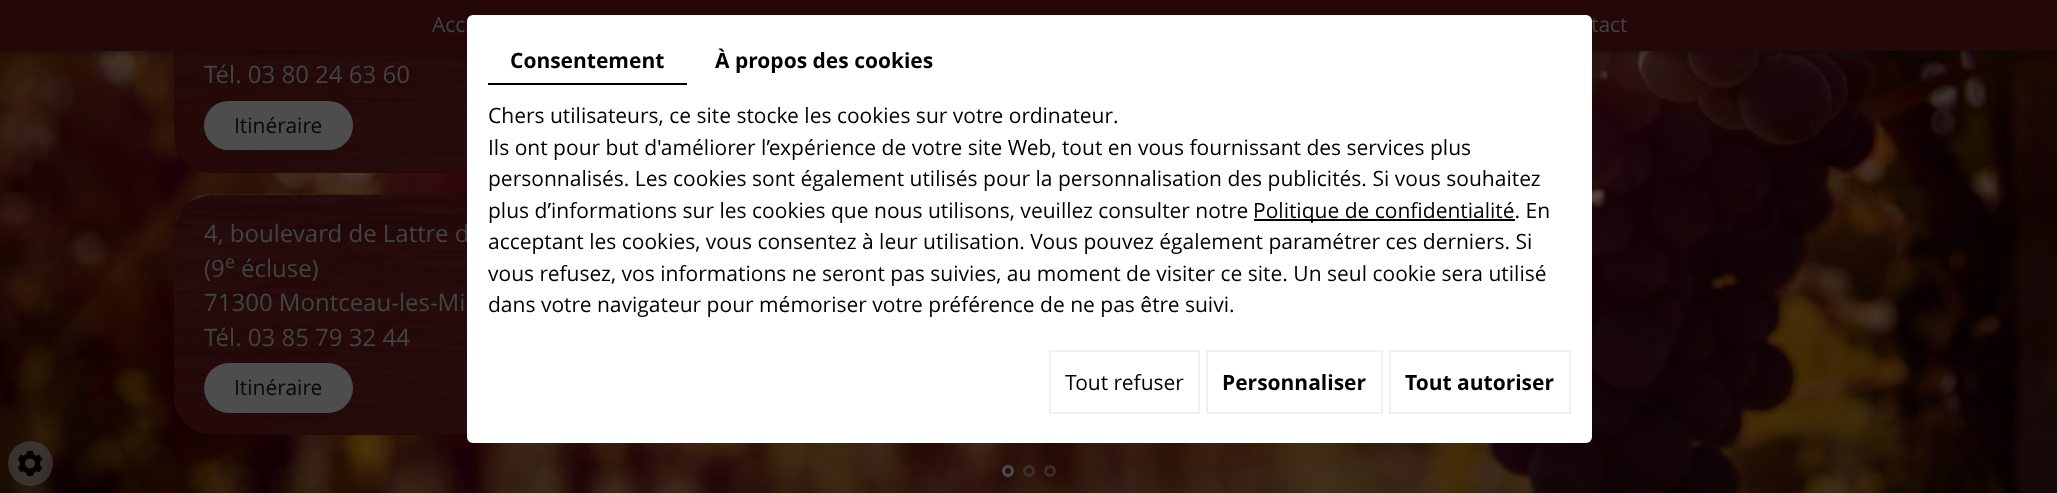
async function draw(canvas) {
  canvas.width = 2057
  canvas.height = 493
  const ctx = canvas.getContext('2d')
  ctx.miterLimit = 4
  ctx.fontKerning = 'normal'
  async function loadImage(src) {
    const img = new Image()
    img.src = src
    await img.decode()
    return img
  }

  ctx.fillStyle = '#fff'
  ctx.fillRect(0, 0, 2057, 493)
  ctx.drawImage(await loadImage('image0.png'), 0, 51, 2057, 442)
  ctx.drawImage(await loadImage('image1.png'), 174, 51, 293, 121)
  ctx.fillStyle = '#240809e6'
  ctx.beginPath()
  ctx.roundRect(174, -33, 450, 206, 38)
  ctx.fill()
  ctx.fillStyle = '#080808bf'
  ctx.filter = 'blur(4px)'
  ctx.beginPath()
  ctx.rect(0, 0, 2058, 51)
  ctx.fill()
  ctx.filter = 'none'
  ctx.fillStyle = '#240809'
  ctx.fillRect(0, 0, 2057, 51)
  ctx.font = '21px Open Sans'
  ctx.fillStyle = '#434343'
  ctx.fillText('Acc', 432, 32)
  ctx.fillText('tact', 1591, 32)
  ctx.beginPath()
  ctx.arc(1008, 471, 4.5, 0, 2 * Math.PI)
  ctx.strokeStyle = '#4d4d4d'
  ctx.lineWidth = 3
  ctx.stroke()
  ctx.beginPath()
  ctx.arc(1029, 471, 4.5, 0, 2 * Math.PI)
  ctx.strokeStyle = '#4d4d4d80'
  ctx.stroke()
  ctx.beginPath()
  ctx.arc(1050, 471, 4.5, 0, 2 * Math.PI)
  ctx.stroke()
  ctx.font = '24px Open Sans'
  ctx.fillText('Tél. 03 80 24 63 60', 204, 83)
  ctx.fillStyle = '#4d4d4d'
  ctx.beginPath()
  ctx.roundRect(204, 101, 149, 49, 24.5)
  ctx.fill()
  ctx.font = '21px Open Sans'
  ctx.fillStyle = '#080808'
  ctx.fillText('Itinéraire', 234, 133)
  ctx.drawImage(await loadImage('image2.png'), 174, 193, 293, 242)
  ctx.fillStyle = '#240809e6'
  ctx.beginPath()
  ctx.roundRect(174, 195, 450, 240, 38)
  ctx.fill()
  ctx.font = '24px Open Sans'
  ctx.fillStyle = '#434343'
  ctx.fillText('4, boulevard de Lattre d', 204, 242)
  ctx.fillText('(9', 204, 277)
  ctx.font = '18px Open Sans'
  ctx.fillText('e', 225, 268)
  ctx.font = '24px Open Sans'
  ctx.fillText('écluse)', 241, 277)
  ctx.fillText('71300 Montceau-les-Mi', 204, 311)
  ctx.fillText('Tél. 03 85 79 32 44', 204, 346)
  ctx.fillStyle = '#4d4d4d'
  ctx.beginPath()
  ctx.roundRect(204, 363, 149, 50, 25)
  ctx.fill()
  ctx.font = '21px Open Sans'
  ctx.fillStyle = '#080808'
  ctx.fillText('Itinéraire', 234, 395)
  ctx.fillStyle = '#fff'
  ctx.beginPath()
  ctx.roundRect(467, 15, 1125, 428, 6)
  ctx.fill()
  ctx.fillStyle = '#000'
  ctx.fillRect(488, 83, 199, 2)
  ctx.font = 'bold 21px Open Sans'
  ctx.fillText('Consentement', 510, 68)
  ctx.fillText('À propos des cookies', 715, 68)
  ctx.font = '21px Open Sans'
  ctx.fillText('Chers utilisateurs, ce site stocke les cookies sur votre ordinateur.', 488, 123)
  ctx.fillText('Ils ont pour but d\'améliorer l’expérience de votre site Web, tout en vous fournissant des services plus', 488, 155)
  ctx.fillText('personnalisés. Les cookies sont également utilisés pour la personnalisation des publicités. Si vous souhaitez', 488, 186)
  ctx.fillText('plus d’informations sur les cookies que nous utilisons, veuillez consulter notre', 488, 218)
  ctx.fillRect(1254, 219, 261, 2)
  ctx.fillText('Politique de confidentialité. En', 1253, 218)
  ctx.fillText('acceptant les cookies, vous consentez à leur utilisation. Vous pouvez également paramétrer ces derniers. Si', 488, 249)
  ctx.fillText('vous refusez, vos informations ne seront pas suivies, au moment de visiter ce site. Un seul cookie sera utilisé', 488, 281)
  ctx.fillText('dans votre navigateur pour mémoriser votre préférence de ne pas être suivi.', 488, 312)
  ctx.strokeStyle = '#f0f0f0'
  ctx.lineWidth = 2
  ctx.strokeRect(1050, 351, 149, 62)
  ctx.fillText('Tout refuser', 1065, 390)
  ctx.strokeRect(1207, 351, 175, 62)
  ctx.font = 'bold 21px Open Sans'
  ctx.fillText('Personnaliser', 1222, 390)
  ctx.strokeRect(1390, 351, 180, 62)
  ctx.fillText('Tout autoriser', 1405, 390)
  ctx.fillStyle = '#4d4d4d8a'
  ctx.beginPath()
  ctx.arc(30.5, 463.5, 22.5, 0, 2 * Math.PI)
  ctx.fill()
  ctx.drawImage(await loadImage('image3.png'), 17, 451, 26, 25)
}

draw(document.querySelector('canvas'))
